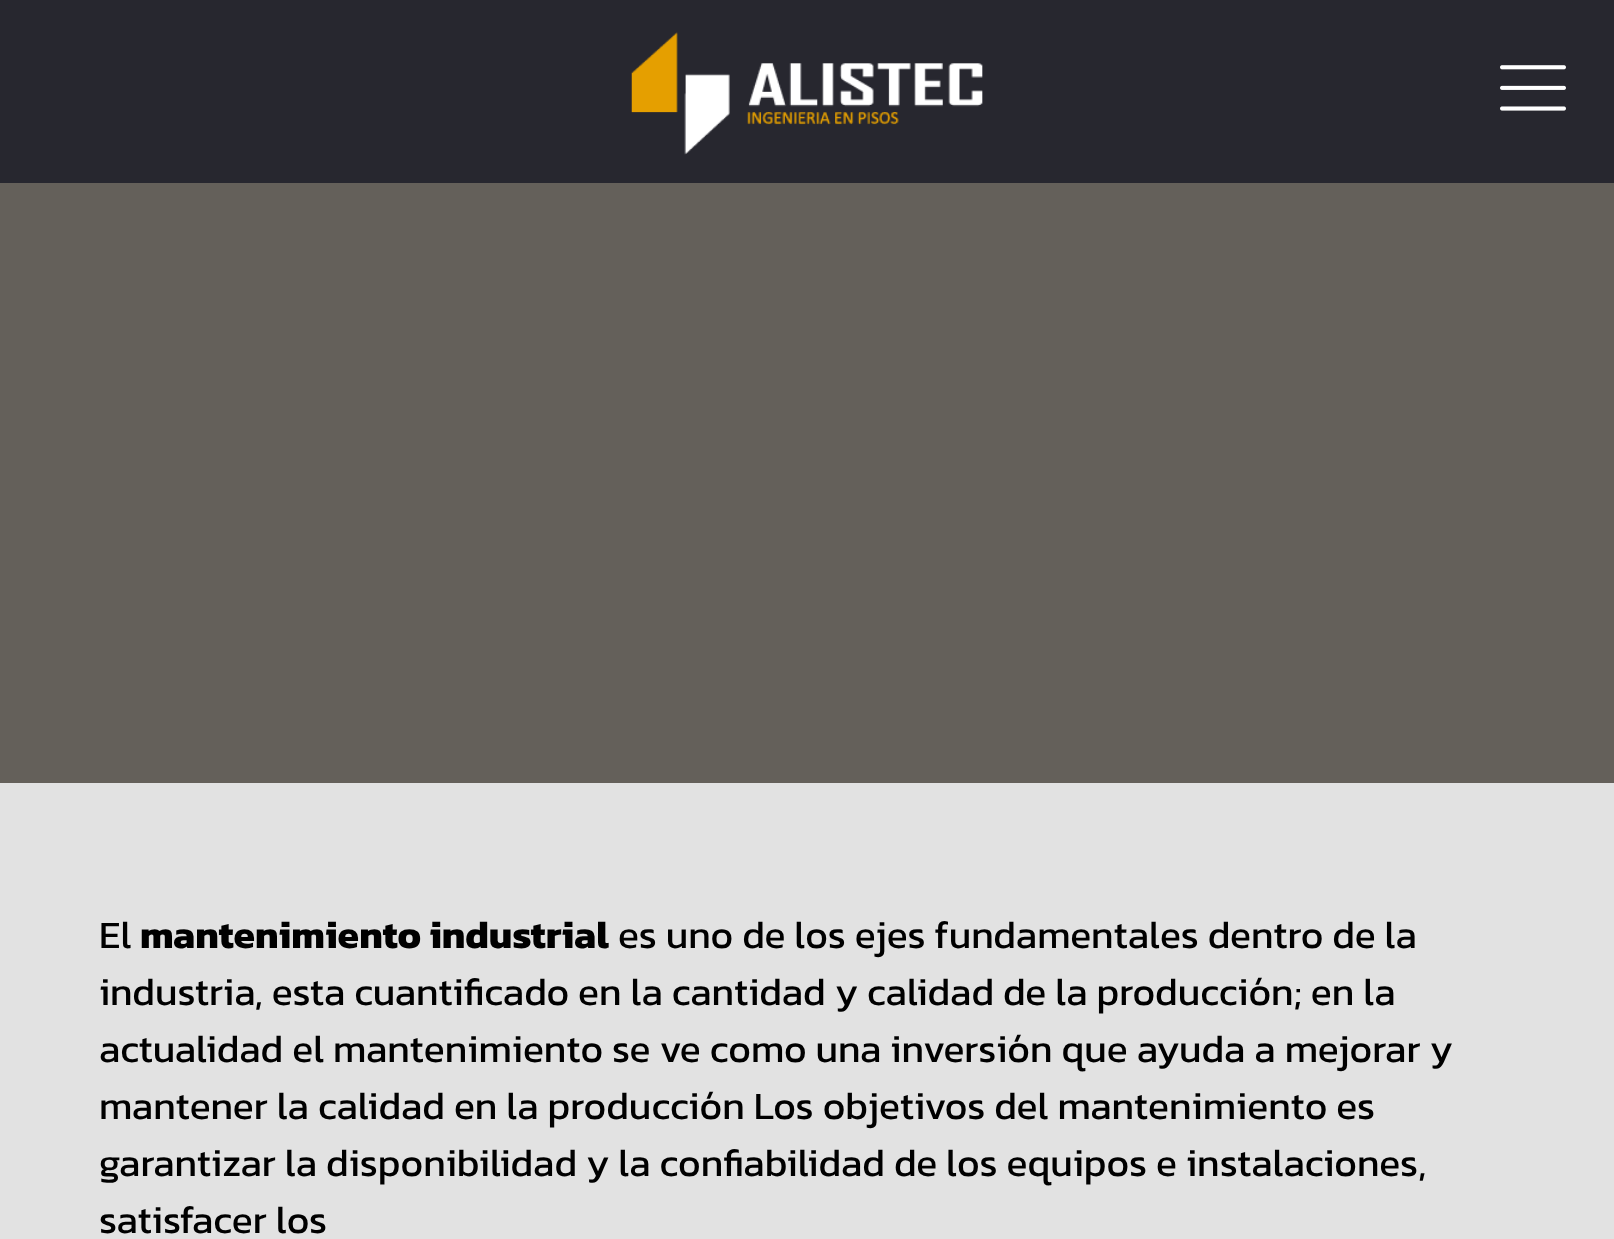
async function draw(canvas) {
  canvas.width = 1614
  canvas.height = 1239
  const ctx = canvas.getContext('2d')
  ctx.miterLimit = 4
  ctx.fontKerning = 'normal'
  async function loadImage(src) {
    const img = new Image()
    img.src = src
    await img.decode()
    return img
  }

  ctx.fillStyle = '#64605a'
  ctx.fillRect(0, 0, 1614, 1239)
  ctx.fillStyle = '#27272f'
  ctx.fillRect(0, 0, 1614, 183)
  ctx.drawImage(await loadImage('image0.png'), 631, 32, 352, 123)
  ctx.drawImage(await loadImage('image1.png'), 1500, 65, 66, 46)
  ctx.fillStyle = '#e2e2e2'
  ctx.fillRect(0, 783, 1614, 456)
  ctx.font = '39px Kanit'
  ctx.fillStyle = '#000'
  ctx.fillText('El', 99, 948)
  ctx.font = 'bold 39px Kanit'
  ctx.fillText('mantenimiento industrial', 140, 948)
  ctx.font = '39px Kanit'
  ctx.fillText('es uno de los ejes fundamentales dentro de la', 618, 948)
  ctx.fillText('industria, esta cuantificado en la cantidad y calidad de la producción; en la', 99, 1005)
  ctx.fillText('actualidad el mantenimiento se ve como una inversión que ayuda a mejorar y', 99, 1062)
  ctx.fillText('mantener la calidad en la producción Los objetivos del mantenimiento es', 99, 1119)
  ctx.fillText('garantizar la disponibilidad y la confiabilidad de los equipos e instalaciones,', 99, 1176)
  ctx.fillText('satisfacer los', 99, 1233)
}

draw(document.querySelector('canvas'))
